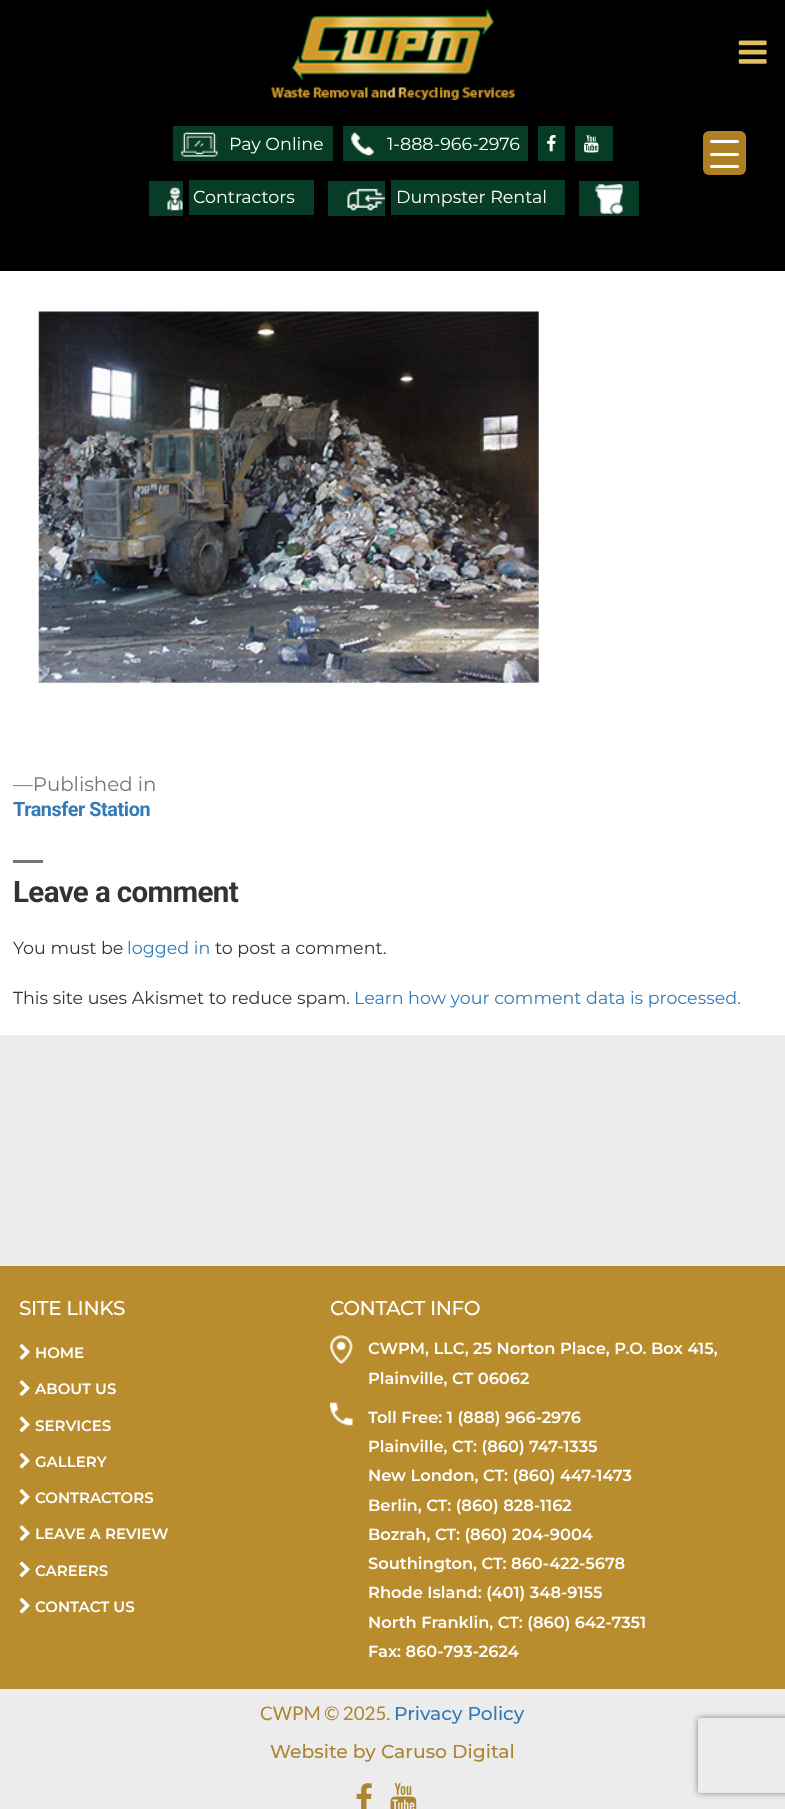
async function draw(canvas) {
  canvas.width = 785
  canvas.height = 1809
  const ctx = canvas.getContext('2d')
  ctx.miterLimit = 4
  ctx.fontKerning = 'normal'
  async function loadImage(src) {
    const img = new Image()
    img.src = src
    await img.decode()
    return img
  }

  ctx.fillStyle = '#fff'
  ctx.fillRect(0, 0, 785, 1809)
  ctx.fillStyle = '#000'
  ctx.fillRect(0, 0, 785, 271)
  ctx.fillStyle = '#ae8023'
  ctx.beginPath()
  ctx.roundRect(703, 131, 43, 44, 6)
  ctx.fill()
  ctx.fillStyle = '#fff'
  ctx.beginPath()
  ctx.roundRect(710, 153, 29, 3, 1.5)
  ctx.fill()
  ctx.beginPath()
  ctx.roundRect(710, 140, 29, 3, 1.5)
  ctx.fill()
  ctx.beginPath()
  ctx.roundRect(710, 165, 29, 3, 1.5)
  ctx.fill()
  ctx.drawImage(await loadImage('image0.png'), 271, 8, 244, 92)
  ctx.drawImage(await loadImage('image1.png'), 738, 40, 29, 24)
  ctx.fillStyle = '#073d27'
  ctx.fillRect(173, 126, 160, 35)
  ctx.drawImage(await loadImage('image2.png'), 181, 132, 37, 25)
  ctx.font = '17.5px Montserrat'
  ctx.fillStyle = '#fff'
  ctx.fillText('Pay Online', 229, 150)
  ctx.fillStyle = '#073d27'
  ctx.fillRect(343, 126, 185, 35)
  ctx.drawImage(await loadImage('image3.png'), 351, 132, 23, 24)
  ctx.fillStyle = '#fff'
  ctx.fillText('1-888-966-2976', 387, 150)
  ctx.fillStyle = '#073d27'
  ctx.fillRect(538, 126, 27, 35)
  ctx.drawImage(await loadImage('image4.png'), 547, 135, 9, 17)
  ctx.fillRect(575, 126, 38, 35)
  ctx.drawImage(await loadImage('image5.png'), 584, 135, 15, 18)
  ctx.fillRect(149, 181, 34, 35)
  ctx.drawImage(await loadImage('image6.png'), 167, 187, 16, 24)
  ctx.fillRect(189, 180, 125, 35)
  ctx.fillStyle = '#fff'
  ctx.fillText('Contractors', 193, 203)
  ctx.fillStyle = '#073d27'
  ctx.fillRect(328, 181, 57, 35)
  ctx.drawImage(await loadImage('image7.png'), 347, 188, 38, 23)
  ctx.fillRect(391, 180, 174, 35)
  ctx.fillStyle = '#fff'
  ctx.fillText('Dumpster Rental', 396, 203)
  ctx.fillStyle = '#073d27'
  ctx.fillRect(579, 181, 60, 35)
  ctx.drawImage(await loadImage('image8.png'), 594, 184, 29, 30)
  ctx.drawImage(await loadImage('image9.png'), 38, 311, 501, 372)
  ctx.font = '19.75px Montserrat'
  ctx.fillStyle = '#767676'
  ctx.fillText('—Published in', 13, 791)
  ctx.letterSpacing = '-0.4px'
  ctx.font = 'bold 19.75px Roboto'
  ctx.fillStyle = '#337ab7'
  ctx.fillText('Transfer Station', 13, 816)
  ctx.fillStyle = '#767676'
  ctx.fillRect(13, 860, 30, 3)
  ctx.letterSpacing = '-0.6px'
  ctx.font = 'bold 29.5px Roboto'
  ctx.fillStyle = '#333'
  ctx.fillText('Leave a comment', 13, 902)
  ctx.letterSpacing = '0px'
  ctx.font = '17.5px Montserrat'
  ctx.fillText('You must be', 13, 954)
  ctx.fillStyle = '#337ab7'
  ctx.fillText('logged in', 127, 954)
  ctx.fillStyle = '#333'
  ctx.fillText('to post a comment.', 215, 954)
  ctx.fillText('This site uses Akismet to reduce spam.', 13, 1004)
  ctx.fillStyle = '#337ab7'
  ctx.fillText('Learn how your comment data is processed.', 354, 1004)
  ctx.fillStyle = '#ececec'
  ctx.fillRect(0, 1035, 785, 231)
  ctx.fillStyle = '#b98c2d'
  ctx.fillRect(0, 1266, 785, 423)
  ctx.letterSpacing = '-0.4px'
  ctx.font = '500 20px Montserrat'
  ctx.fillStyle = '#fff'
  ctx.fillText('SITE LINKS', 19, 1315)
  ctx.drawImage(await loadImage('image10.png'), 19, 1344, 11, 16)
  ctx.letterSpacing = '0px'
  ctx.font = '600 15px Montserrat'
  ctx.fillText('HOME', 35, 1358)
  ctx.drawImage(await loadImage('image11.png'), 19, 1380, 11, 16)
  ctx.fillText('ABOUT US', 35, 1394)
  ctx.drawImage(await loadImage('image12.png'), 19, 1416, 11, 17)
  ctx.fillText('SERVICES', 35, 1431)
  ctx.drawImage(await loadImage('image13.png'), 19, 1452, 11, 17)
  ctx.fillText('GALLERY', 35, 1467)
  ctx.drawImage(await loadImage('image10.png'), 19, 1489, 11, 16)
  ctx.fillText('CONTRACTORS', 35, 1503)
  ctx.drawImage(await loadImage('image11.png'), 19, 1525, 11, 16)
  ctx.fillText('LEAVE A REVIEW', 35, 1539)
  ctx.drawImage(await loadImage('image12.png'), 19, 1561, 11, 17)
  ctx.fillText('CAREERS', 35, 1576)
  ctx.drawImage(await loadImage('image13.png'), 19, 1597, 11, 17)
  ctx.fillText('CONTACT US', 35, 1612)
  ctx.letterSpacing = '-0.4px'
  ctx.font = '500 20px Montserrat'
  ctx.fillText('CONTACT INFO', 330, 1315)
  ctx.drawImage(await loadImage('image14.png'), 330, 1335, 23, 29)
  ctx.letterSpacing = '0px'
  ctx.font = '600 16.25px Montserrat'
  ctx.fillText('CWPM, LLC, 25 Norton Place, P.O. Box 415,', 368, 1354)
  ctx.fillText('Plainville, CT 06062', 368, 1384)
  ctx.drawImage(await loadImage('image15.png'), 330, 1402, 23, 24)
  ctx.fillText('Toll Free: 1 (888) 966-2976', 368, 1423)
  ctx.fillText('Plainville, CT: (860) 747-1335', 368, 1452)
  ctx.fillText('New London, CT: (860) 447-1473', 368, 1481)
  ctx.fillText('Berlin, CT: (860) 828-1162', 368, 1511)
  ctx.fillText('Bozrah, CT: (860) 204-9004', 368, 1540)
  ctx.fillText('Southington, CT: 860-422-5678', 368, 1569)
  ctx.fillText('Rhode Island: (401) 348-9155', 368, 1598)
  ctx.fillText('North Franklin, CT: (860) 642-7351', 368, 1628)
  ctx.fillText('Fax: 860-793-2624', 368, 1657)
  ctx.fillStyle = '#ececec'
  ctx.fillRect(0, 1689, 785, 120)
  ctx.font = '18.75px Lato'
  ctx.fillStyle = '#ad8531'
  ctx.fillText('CWPM © 2025.', 260, 1720)
  ctx.font = '500 18.75px Montserrat'
  ctx.fillStyle = '#337ab7'
  ctx.fillText('Privacy Policy', 394, 1720)
  ctx.fillStyle = '#ad8531'
  ctx.fillText('Website by Caruso Digital', 270, 1758)
  ctx.drawImage(await loadImage('image16.png'), 356, 1783, 16, 26)
  ctx.drawImage(await loadImage('image17.png'), 390, 1783, 27, 26)
  ctx.save()
  ctx.beginPath()
  ctx.moveTo(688, 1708)
  ctx.lineTo(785, 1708)
  ctx.lineTo(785, 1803)
  ctx.lineTo(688, 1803)
  ctx.closePath()
  ctx.moveTo(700.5, 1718)
  ctx.lineTo(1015.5, 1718)
  ctx.bezierCurveTo(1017, 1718, 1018, 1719, 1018, 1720.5)
  ctx.lineTo(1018, 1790.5)
  ctx.bezierCurveTo(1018, 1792, 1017, 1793, 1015.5, 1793)
  ctx.lineTo(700.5, 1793)
  ctx.bezierCurveTo(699, 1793, 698, 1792, 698, 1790.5)
  ctx.lineTo(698, 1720.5)
  ctx.bezierCurveTo(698, 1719, 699, 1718, 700.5, 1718)
  ctx.closePath()
  ctx.clip('evenodd')
  ctx.fillStyle = '#808080'
  ctx.filter = 'blur(3px)'
  ctx.beginPath()
  ctx.roundRect(698, 1718, 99, 75, 2.5)
  ctx.fill()
  ctx.filter = 'none'
  ctx.restore()
}

draw(document.querySelector('canvas'))
